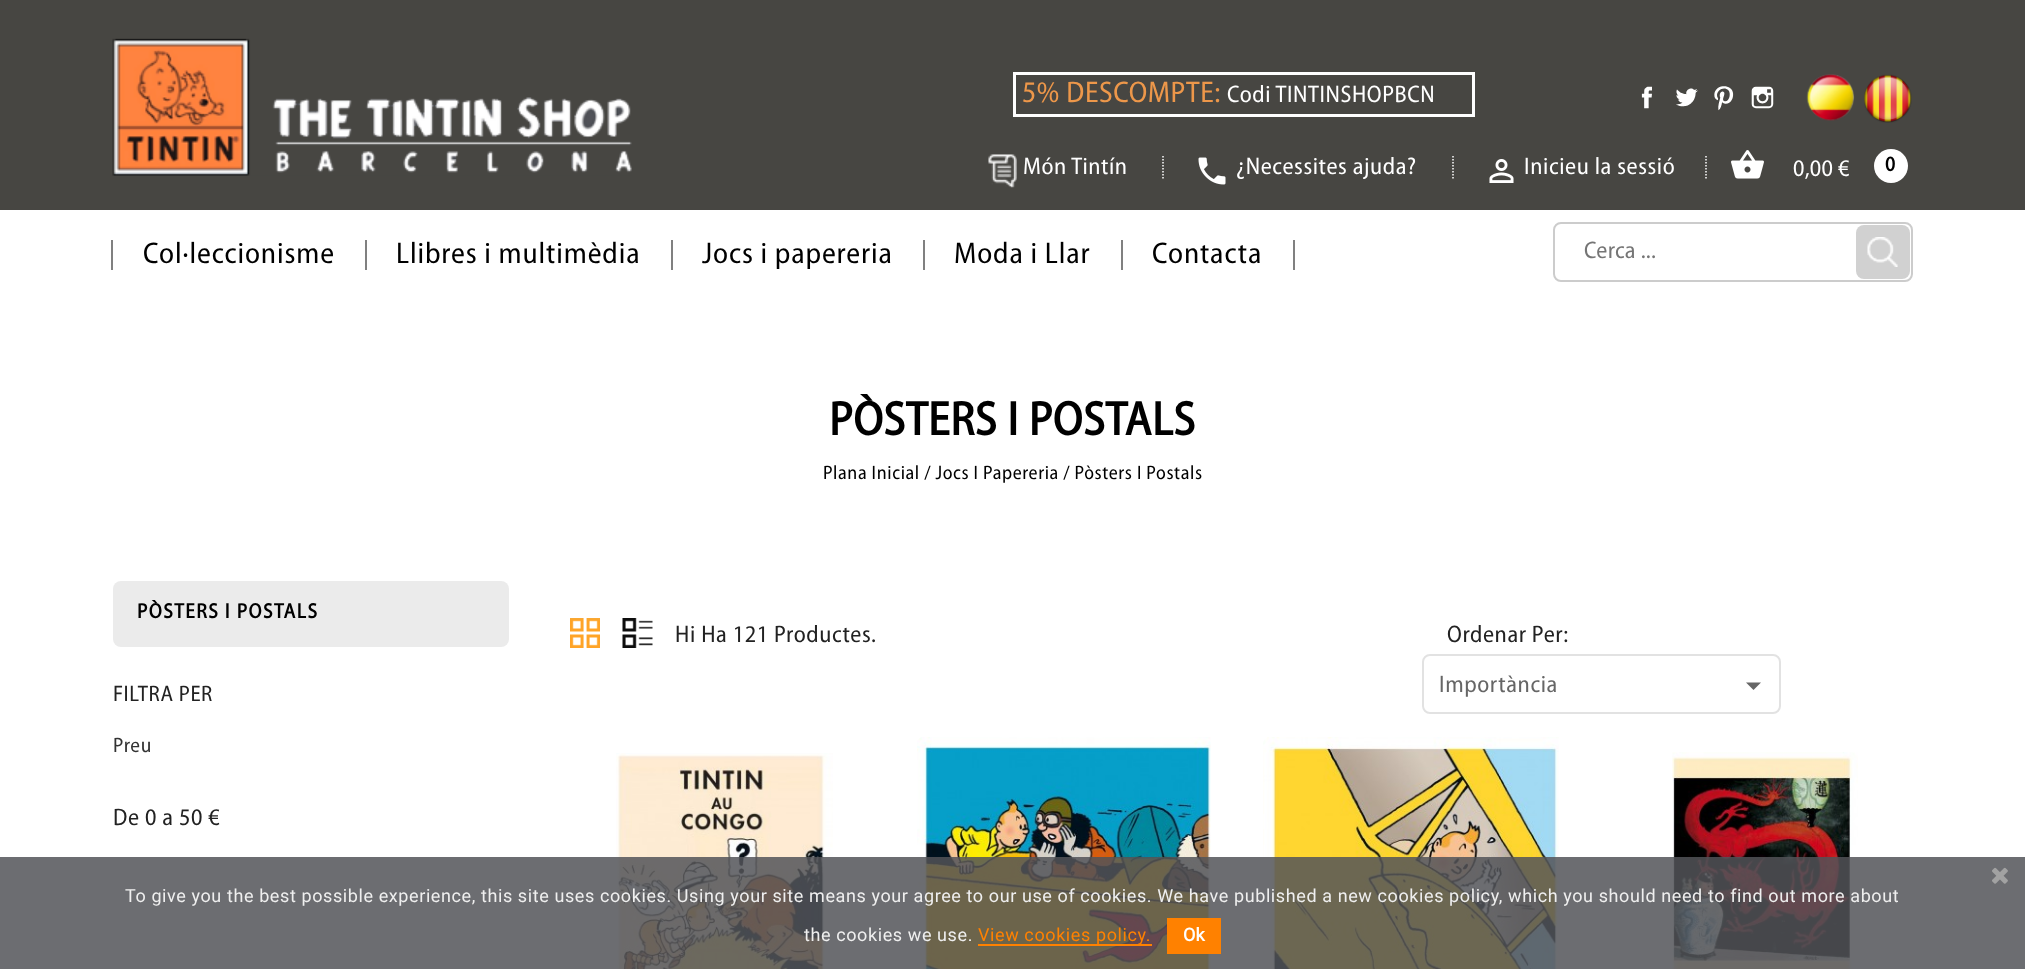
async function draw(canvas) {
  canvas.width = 2025
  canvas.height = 969
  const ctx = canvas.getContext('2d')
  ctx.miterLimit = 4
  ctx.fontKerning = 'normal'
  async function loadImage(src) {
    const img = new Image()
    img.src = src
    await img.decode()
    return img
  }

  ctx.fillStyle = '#fff'
  ctx.fillRect(0, 0, 2025, 969)
  ctx.fillStyle = '#474642'
  ctx.fillRect(0, 0, 2025, 210)
  ctx.strokeStyle = '#fff'
  ctx.lineWidth = 3
  ctx.strokeRect(1014.5, 73.5, 459, 42)
  ctx.letterSpacing = '0.6px'
  ctx.font = '30px Myriad'
  ctx.fillStyle = '#ed974a'
  ctx.fillText('5% DESCOMPTE:', 1022, 102)
  ctx.font = '24px Myriad'
  ctx.fillStyle = '#fff'
  ctx.fillText('Codi TINTINSHOPBCN', 1227, 102)
  ctx.drawImage(await loadImage('image0.png'), 1641, 86, 11, 23)
  ctx.drawImage(await loadImage('image1.png'), 1676, 88, 22, 19)
  ctx.drawImage(await loadImage('image2.png'), 1714, 86, 20, 25)
  ctx.drawImage(await loadImage('image3.png'), 1751, 86, 23, 23)
  ctx.drawImage(await loadImage('image4.png'), 1806, 74, 49, 47)
  ctx.drawImage(await loadImage('image5.png'), 1864, 74, 48, 49)
  ctx.drawImage(await loadImage('image6.png'), 112, 38, 520, 138)
  ctx.beginPath()
  ctx.moveTo(1163, 156)
  ctx.lineTo(1163, 180)
  ctx.lineWidth = 1.5
  ctx.setLineDash([1.5, 1.5])
  ctx.stroke()
  ctx.drawImage(await loadImage('image7.png'), 988, 154, 29, 34)
  ctx.fillText('Món Tintín', 1023, 174)
  ctx.beginPath()
  ctx.moveTo(1453, 156)
  ctx.lineTo(1453, 180)
  ctx.stroke()
  ctx.drawImage(await loadImage('image8.png'), 1198, 157, 28, 28)
  ctx.fillText('¿Necessites ajuda?', 1236, 174)
  ctx.beginPath()
  ctx.moveTo(1706, 156)
  ctx.lineTo(1706, 180)
  ctx.stroke()
  ctx.drawImage(await loadImage('image9.png'), 1489, 159, 25, 24)
  ctx.fillText('Inicieu la sessió', 1524, 174)
  ctx.drawImage(await loadImage('image10.png'), 1731, 150, 33, 29)
  ctx.letterSpacing = '0.25px'
  ctx.fillText('0,00 €', 1793, 176)
  ctx.beginPath()
  ctx.arc(1891, 166, 17, 0, 2 * Math.PI)
  ctx.fill()
  ctx.letterSpacing = '0.6px'
  ctx.font = 'bold 21px Myriad'
  ctx.fillStyle = '#000'
  ctx.fillText('0', 1885, 171)
  ctx.fillStyle = '#808080'
  ctx.fillRect(365, 240, 2, 30)
  ctx.fillRect(111, 240, 2, 30)
  ctx.letterSpacing = '0.9px'
  ctx.font = '30px Myriad'
  ctx.fillStyle = '#000'
  ctx.fillText('Col·leccionisme', 143, 263)
  ctx.fillStyle = '#808080'
  ctx.fillRect(671, 240, 2, 30)
  ctx.fillStyle = '#000'
  ctx.fillText('Llibres i multimèdia', 396, 263)
  ctx.fillStyle = '#808080'
  ctx.fillRect(923, 240, 2, 30)
  ctx.fillStyle = '#000'
  ctx.fillText('Jocs i papereria', 702, 263)
  ctx.fillStyle = '#808080'
  ctx.fillRect(1121, 240, 2, 30)
  ctx.fillStyle = '#000'
  ctx.fillText('Moda i Llar', 954, 263)
  ctx.fillStyle = '#808080'
  ctx.fillRect(1293, 240, 2, 30)
  ctx.fillStyle = '#000'
  ctx.fillText('Contacta', 1152, 263)
  ctx.beginPath()
  ctx.roundRect(1554, 223, 358, 58, 7)
  ctx.strokeStyle = '#ccc'
  ctx.lineWidth = 2
  ctx.setLineDash([])
  ctx.stroke()
  ctx.letterSpacing = '0.25px'
  ctx.font = '24px Myriad'
  ctx.fillStyle = '#757575'
  ctx.fillText('Cerca ...', 1584, 258)
  ctx.fillStyle = '#d1d1d1'
  ctx.beginPath()
  ctx.roundRect(1856, 225, 54, 54, 8)
  ctx.fill()
  ctx.drawImage(await loadImage('image11.png'), 1867, 237, 31, 30)
  ctx.letterSpacing = '0.6px'
  ctx.font = 'bold 48px Myriad'
  ctx.fillStyle = '#000'
  ctx.fillText('PÒSTERS I POSTALS', 829, 435)
  ctx.font = '19.5px Myriad'
  ctx.fillText('Plana Inicial / Jocs I Papereria / Pòsters I Postals', 823, 479)
  ctx.fillStyle = '#ebebeb'
  ctx.beginPath()
  ctx.roundRect(113, 581, 396, 66, 8)
  ctx.fill()
  ctx.letterSpacing = '1.5px'
  ctx.font = 'bold 21px Myriad'
  ctx.fillStyle = '#000'
  ctx.fillText('PÒSTERS I POSTALS', 137, 618)
  ctx.letterSpacing = '0.6px'
  ctx.font = '22.5px Myriad'
  ctx.fillStyle = '#222'
  ctx.fillText('FILTRA PER', 113, 701)
  ctx.font = '21px Myriad'
  ctx.fillStyle = '#333'
  ctx.fillText('Preu', 113, 752)
  ctx.font = '24px Myriad'
  ctx.fillStyle = '#222'
  ctx.fillText('De 0 a 50 €', 113, 825)
  ctx.drawImage(await loadImage('image12.png'), 570, 618, 30, 30)
  ctx.drawImage(await loadImage('image13.png'), 622, 618, 31, 30)
  ctx.fillText('Hi Ha 121 Productes.', 675, 642)
  ctx.fillText('Ordenar Per:', 1447, 642)
  ctx.beginPath()
  ctx.roundRect(1423, 655, 357, 58, 7)
  ctx.strokeStyle = '#e2e2e2'
  ctx.stroke()
  ctx.fillStyle = '#666'
  ctx.fillText('Importància', 1439, 692)
  ctx.beginPath()
  ctx.moveTo(1746, 682.5)
  ctx.lineTo(1761, 682.5)
  ctx.lineTo(1753.5, 690)
  ctx.closePath()
  ctx.fill()
  ctx.drawImage(await loadImage('image14.png'), 616, 753, 217, 216)
  ctx.drawImage(await loadImage('image15.png'), 917, 737, 294, 232)
  ctx.drawImage(await loadImage('image16.png'), 1263, 737, 296, 232)
  ctx.drawImage(await loadImage('image17.png'), 1672, 752, 186, 217)
  ctx.fillStyle = '#525358d9'
  ctx.fillRect(0, 857, 2025, 112)
  ctx.drawImage(await loadImage('image18.png'), 1992, 867, 16, 17)
  ctx.font = '18px Roboto'
  ctx.fillStyle = '#efefef'
  ctx.fillText('To give you the best possible experience, this site uses cookies. Using your site means your agree to our use of cookies. We have published a new cookies policy, which you should need to find out more about', 125, 902)
  ctx.fillText('the cookies we use.', 804, 941)
  ctx.fillStyle = '#ff8100'
  ctx.fillRect(978, 944, 174, 2)
  ctx.fillText('View cookies policy.', 978, 941)
  ctx.fillRect(1167, 918, 54, 36)
  ctx.letterSpacing = '0px'
  ctx.font = 'bold 18px Roboto'
  ctx.fillStyle = '#fff'
  ctx.fillText('Ok', 1183, 941)
}

draw(document.querySelector('canvas'))
